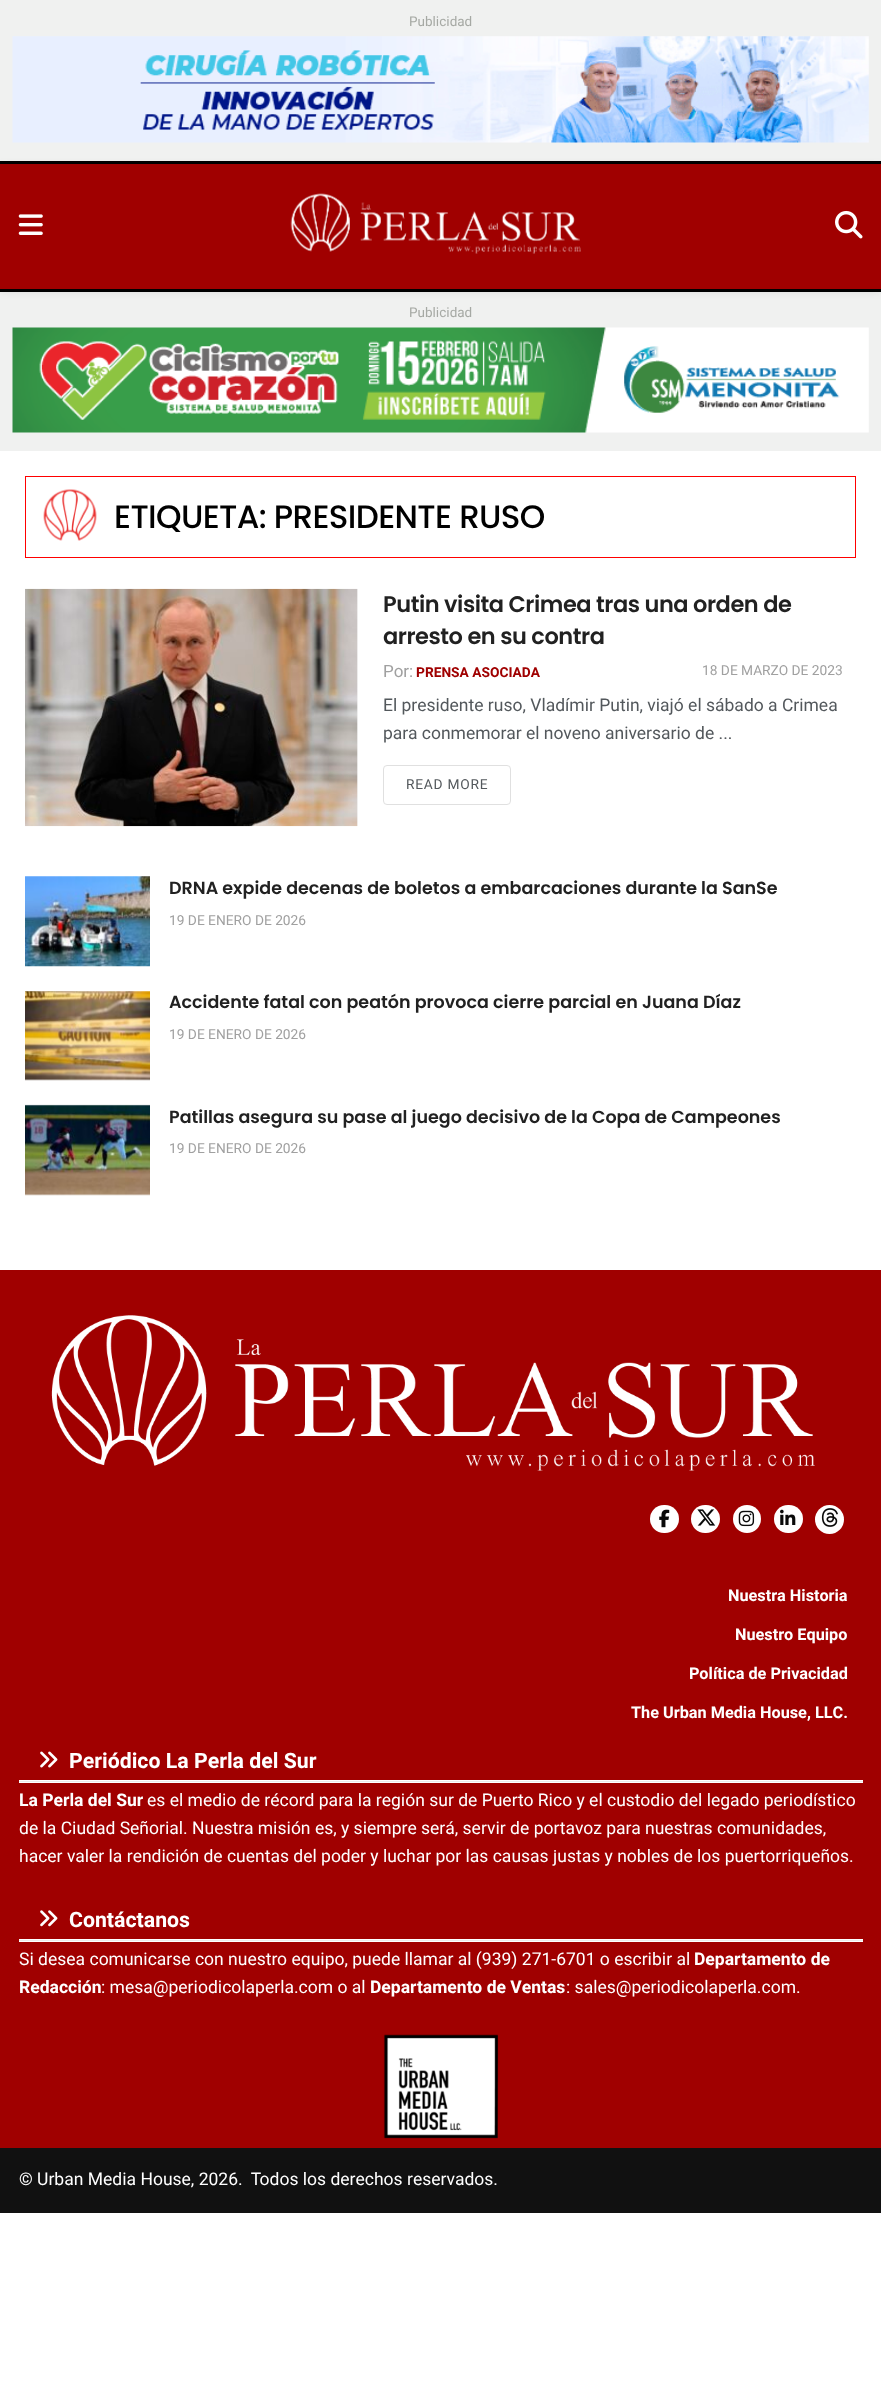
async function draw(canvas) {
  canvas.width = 881
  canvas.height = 2395
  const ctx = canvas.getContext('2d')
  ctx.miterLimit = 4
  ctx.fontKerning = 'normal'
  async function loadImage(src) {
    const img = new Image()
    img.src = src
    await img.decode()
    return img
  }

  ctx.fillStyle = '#fff'
  ctx.fillRect(0, 0, 881, 2395)
  ctx.fillStyle = '#f0f1f0'
  ctx.fillRect(0, 0, 881, 161)
  ctx.font = '13.5px Heebo'
  ctx.fillStyle = '#a6a9a4'
  ctx.fillText('Publicidad', 409, 26)
  ctx.drawImage(await loadImage('image0.png'), 12, 36, 857, 107)
  ctx.fillStyle = '#000'
  ctx.fillRect(0, 161, 881, 3)
  ctx.fillRect(0, 289, 881, 3)
  ctx.fillStyle = '#f0f1f0'
  ctx.fillRect(0, 292, 881, 159)
  ctx.fillStyle = '#0000001a'
  ctx.filter = 'blur(4px)'
  ctx.beginPath()
  ctx.rect(0, 166, 881, 125)
  ctx.fill()
  ctx.filter = 'none'
  ctx.fillStyle = '#a00000'
  ctx.fillRect(0, 164, 881, 125)
  ctx.drawImage(await loadImage('image1.png'), 18, 214, 25, 21)
  ctx.drawImage(await loadImage('image2.png'), 290, 193, 291, 61)
  ctx.drawImage(await loadImage('image3.png'), 835, 210, 28, 29)
  ctx.fillStyle = '#a6a9a4'
  ctx.fillText('Publicidad', 409, 317)
  ctx.drawImage(await loadImage('image4.png'), 12, 327, 857, 106)
  ctx.drawImage(await loadImage('image5.png'), 43, 489, 54, 52)
  ctx.strokeStyle = '#f00'
  ctx.strokeRect(25.5, 476.5, 830, 81)
  ctx.letterSpacing = '-0.65px'
  ctx.font = '500 32.5px Poppins'
  ctx.fillStyle = '#000'
  ctx.fillText('ETIQUETA: PRESIDENTE RUSO', 114, 528)
  ctx.fillStyle = '#f7f7f7'
  ctx.fillRect(357, 589, 1, 237)
  ctx.drawImage(await loadImage('image6.png'), 25, 588, 333, 239)
  ctx.letterSpacing = '-0.45px'
  ctx.font = '600 22.5px Poppins'
  ctx.fillStyle = '#212121'
  ctx.fillText('Putin visita Crimea tras una orden de', 383, 612)
  ctx.fillText('arresto en su contra', 383, 644)
  ctx.letterSpacing = '0px'
  ctx.font = '17px Heebo'
  ctx.fillStyle = '#a0a0a0'
  ctx.fillText('Por:', 383, 677)
  ctx.font = 'bold 13.75px Heebo'
  ctx.fillStyle = '#a00000'
  ctx.fillText('PRENSA ASOCIADA', 416, 677)
  ctx.font = '13.75px Heebo'
  ctx.fillStyle = '#a0a0a0'
  ctx.fillText('18 DE MARZO DE 2023', 702, 675)
  ctx.font = '17.5px Roboto'
  ctx.fillStyle = '#53585c'
  ctx.fillText('El presidente ruso, Vladímir Putin, viajó el sábado a Crimea', 383, 711)
  ctx.fillText('para conmemorar el noveno aniversario de ...', 383, 739)
  ctx.beginPath()
  ctx.roundRect(383.5, 765.5, 127, 39, 3.5)
  ctx.strokeStyle = '#e0e0e0'
  ctx.stroke()
  ctx.letterSpacing = '0.75px'
  ctx.font = '13.75px Heebo'
  ctx.fillText('READ MORE', 406, 789)
  ctx.drawImage(await loadImage('image7.png'), 25, 876, 125, 91)
  ctx.letterSpacing = '0px'
  ctx.font = '600 17.5px Poppins'
  ctx.fillStyle = '#212121'
  ctx.fillText('DRNA expide decenas de boletos a embarcaciones durante la SanSe', 169, 894)
  ctx.font = '13.75px Heebo'
  ctx.fillStyle = '#a0a0a0'
  ctx.fillText('19 DE ENERO DE 2026', 169, 925)
  ctx.fillStyle = '#f7f7f7'
  ctx.fillRect(25, 991, 125, 89)
  ctx.drawImage(await loadImage('image8.png'), 25, 991, 125, 90)
  ctx.font = '600 17.5px Poppins'
  ctx.fillStyle = '#212121'
  ctx.fillText('Accidente fatal con peatón provoca cierre parcial en Juana Díaz', 169, 1008)
  ctx.font = '13.75px Heebo'
  ctx.fillStyle = '#a0a0a0'
  ctx.fillText('19 DE ENERO DE 2026', 169, 1039)
  ctx.fillStyle = '#f7f7f7'
  ctx.fillRect(25, 1105, 125, 90)
  ctx.drawImage(await loadImage('image9.png'), 25, 1104, 125, 92)
  ctx.font = '600 17.5px Poppins'
  ctx.fillStyle = '#212121'
  ctx.fillText('Patillas asegura su pase al juego decisivo de la Copa de Campeones', 169, 1123)
  ctx.font = '13.75px Heebo'
  ctx.fillStyle = '#a0a0a0'
  ctx.fillText('19 DE ENERO DE 2026', 169, 1153)
  ctx.fillStyle = '#a00000'
  ctx.fillRect(0, 1270, 881, 878)
  ctx.drawImage(await loadImage('image10.png'), 51, 1315, 764, 156)
  ctx.fillStyle = '#fff'
  ctx.beginPath()
  ctx.roundRect(650, 1505, 29, 28, 14)
  ctx.fill()
  ctx.drawImage(await loadImage('image11.png'), 659, 1509, 11, 19)
  ctx.beginPath()
  ctx.roundRect(691, 1505, 29, 28, 14)
  ctx.fill()
  ctx.drawImage(await loadImage('image12.png'), 697, 1509, 19, 17)
  ctx.beginPath()
  ctx.arc(747, 1519, 14, 0, 2 * Math.PI)
  ctx.fill()
  ctx.drawImage(await loadImage('image13.png'), 738, 1510, 17, 17)
  ctx.beginPath()
  ctx.roundRect(774, 1505, 29, 28, 14)
  ctx.fill()
  ctx.drawImage(await loadImage('image14.png'), 780, 1509, 16, 16)
  ctx.beginPath()
  ctx.arc(829.5, 1519.5, 14.5, 0, 2 * Math.PI)
  ctx.fill()
  ctx.drawImage(await loadImage('image15.png'), 821, 1508, 17, 19)
  ctx.font = 'bold 16.25px Heebo'
  ctx.fillText('Nuestra Historia', 728, 1601)
  ctx.fillText('Nuestro Equipo', 735, 1640)
  ctx.fillText('Política de Privacidad', 689, 1679)
  ctx.fillText('The Urban Media House, LLC.', 631, 1718)
  ctx.fillRect(19, 1780, 844, 3)
  ctx.drawImage(await loadImage('image16.png'), 40, 1751, 18, 17)
  ctx.font = 'bold 21.25px Heebo'
  ctx.fillText('Periódico La Perla del Sur', 69, 1768)
  ctx.fillStyle = '#ebebeb'
  ctx.fillRect(19, 1781, 844, 1)
  ctx.font = 'bold 17.5px Heebo'
  ctx.fillStyle = '#fff'
  ctx.fillText('La Perla del Sur', 19, 1806)
  ctx.font = '17.5px Heebo'
  ctx.fillText('es el medio de récord para la región sur de Puerto Rico y el custodio del legado periodístico', 147, 1806)
  ctx.fillText('de la Ciudad Señorial. Nuestra misión es, y siempre será, servir de portavoz para nuestras comunidades,', 19, 1834)
  ctx.fillText('hacer valer la rendición de cuentas del poder y luchar por las causas justas y nobles de los puertorriqueños.', 19, 1862)
  ctx.fillRect(19, 1939, 844, 3)
  ctx.drawImage(await loadImage('image17.png'), 40, 1910, 18, 17)
  ctx.font = 'bold 21.25px Heebo'
  ctx.fillText('Contáctanos', 69, 1927)
  ctx.fillStyle = '#ebebeb'
  ctx.fillRect(19, 1940, 844, 1)
  ctx.font = '17.5px Heebo'
  ctx.fillStyle = '#fff'
  ctx.fillText('Si desea comunicarse con nuestro equipo, puede llamar al (939) 271-6701 o escribir al', 19, 1965)
  ctx.font = 'bold 17.5px Heebo'
  ctx.fillText('Departamento de', 694, 1965)
  ctx.fillText('Redacción', 19, 1993)
  ctx.font = '17.5px Heebo'
  ctx.fillText(': mesa@periodicolaperla.com o al', 101, 1993)
  ctx.font = 'bold 17.5px Heebo'
  ctx.fillText('Departamento de Ventas', 370, 1993)
  ctx.font = '17.5px Heebo'
  ctx.fillText(': sales@periodicolaperla.com.', 566, 1993)
  ctx.drawImage(await loadImage('image18.png'), 383, 2034, 116, 105)
  ctx.fillStyle = '#111'
  ctx.fillRect(0, 2148, 881, 65)
  ctx.fillStyle = '#fff'
  ctx.fillText('© Urban Media House, 2026.  Todos los derechos reservados.', 19, 2185)
}

draw(document.querySelector('canvas'))
